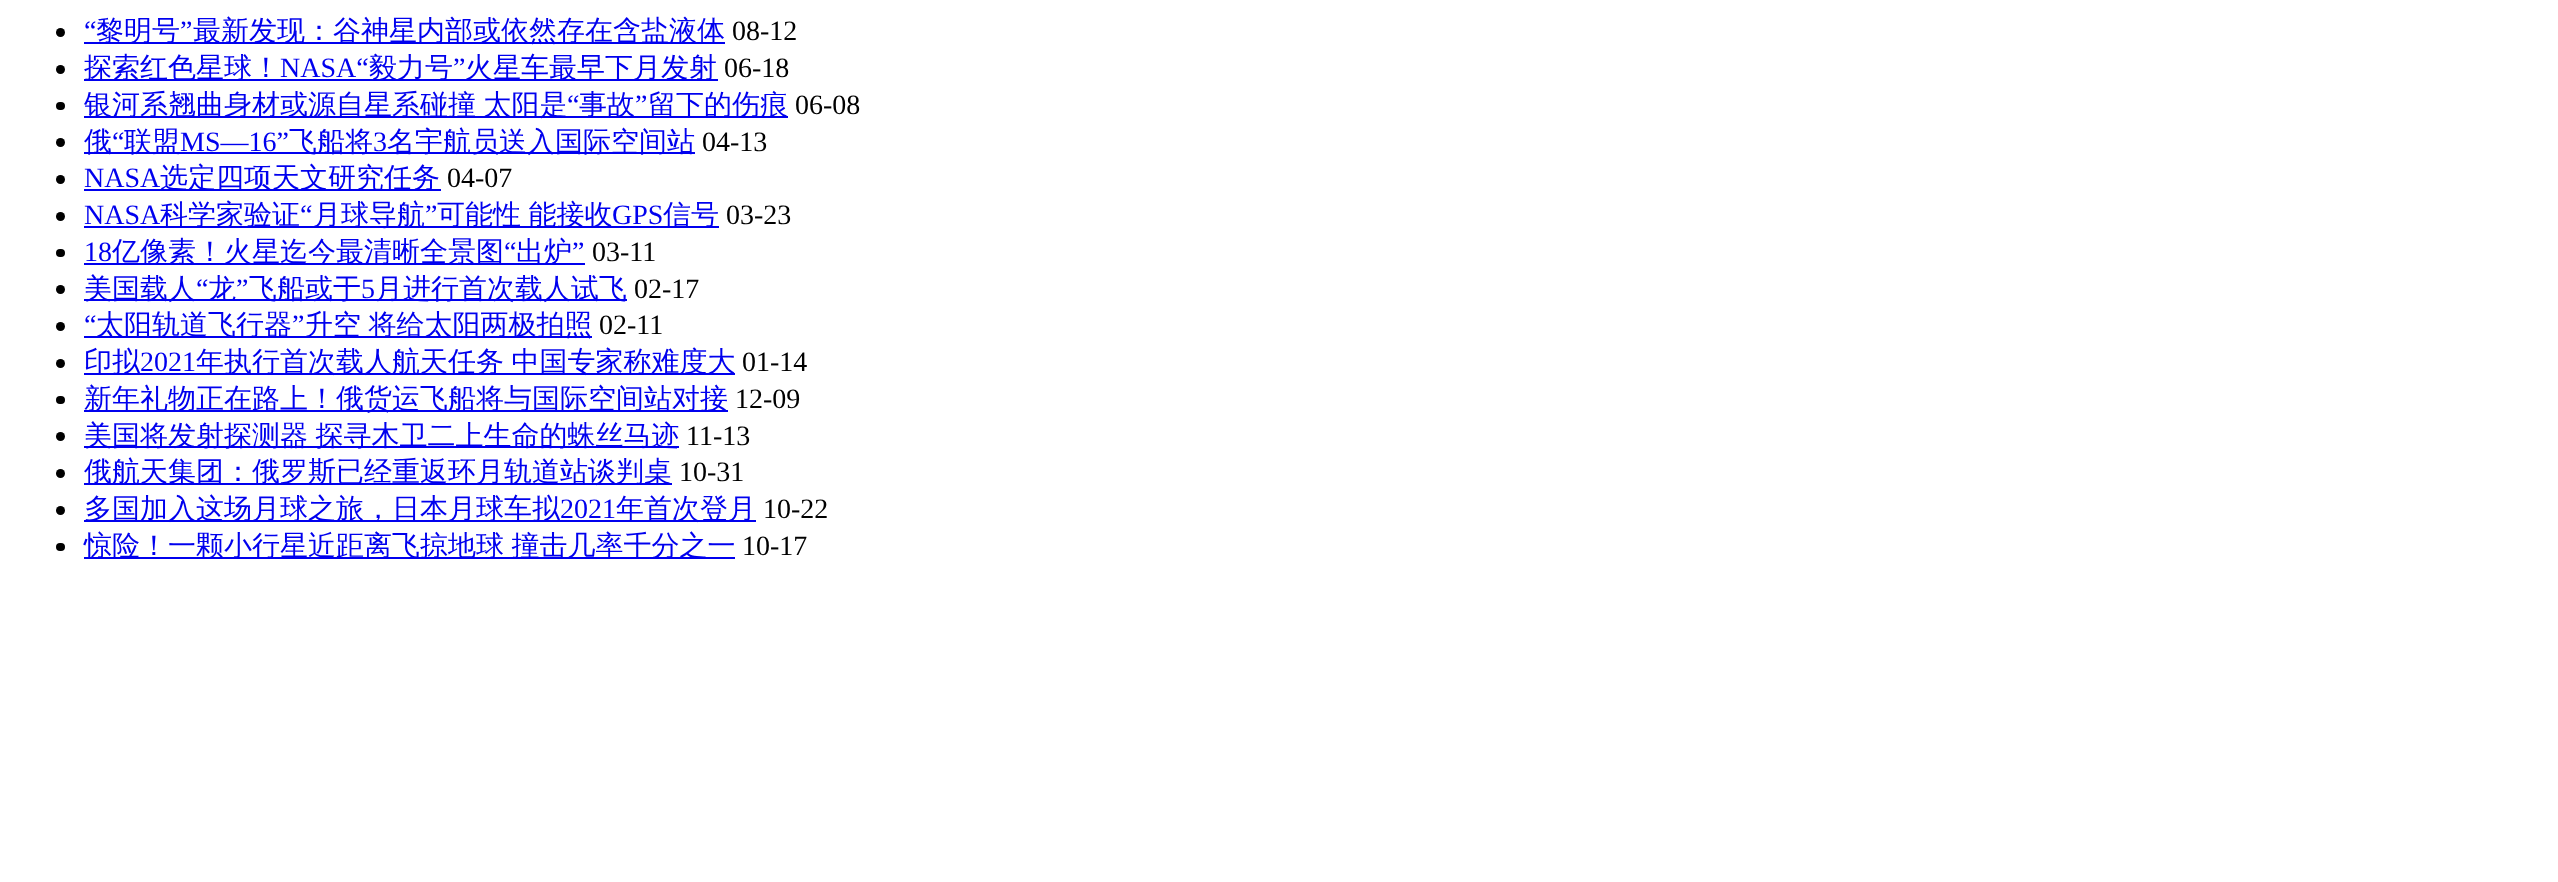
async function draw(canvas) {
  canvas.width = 2558
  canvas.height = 882
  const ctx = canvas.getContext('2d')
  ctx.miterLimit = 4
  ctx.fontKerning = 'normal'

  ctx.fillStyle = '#fff'
  ctx.fillRect(0, 0, 2558, 882)
  ctx.fillStyle = '#000'
  ctx.beginPath()
  ctx.arc(60.5, 32.5, 4.5, 0, 2 * Math.PI)
  ctx.fill()
  ctx.font = '28px Liberation Serif'
  ctx.fillStyle = '#00e'
  ctx.fillText('“', 84, 40)
  ctx.fillRect(84, 42, 641, 2)
  ctx.font = '500 28px WenQuanYi Zen Hei'
  ctx.fillText('黎明号', 96, 40)
  ctx.font = '28px Liberation Serif'
  ctx.fillText('”', 180, 40)
  ctx.font = '500 28px WenQuanYi Zen Hei'
  ctx.fillText('最新发现：谷神星内部或依然存在含盐液体', 193, 40)
  ctx.font = '28px Liberation Serif'
  ctx.fillStyle = '#000'
  ctx.fillText('08-12', 732, 40)
  ctx.beginPath()
  ctx.arc(60.5, 69.5, 4.5, 0, 2 * Math.PI)
  ctx.fill()
  ctx.fillStyle = '#00e'
  ctx.fillRect(84, 79, 634, 2)
  ctx.font = '500 28px WenQuanYi Zen Hei'
  ctx.fillText('探索红色星球！', 84, 77)
  ctx.font = '28px Liberation Serif'
  ctx.fillText('NASA“', 280, 77)
  ctx.font = '500 28px WenQuanYi Zen Hei'
  ctx.fillText('毅力号', 369, 77)
  ctx.font = '28px Liberation Serif'
  ctx.fillText('”', 453, 77)
  ctx.font = '500 28px WenQuanYi Zen Hei'
  ctx.fillText('火星车最早下月发射', 465, 77)
  ctx.font = '28px Liberation Serif'
  ctx.fillStyle = '#000'
  ctx.fillText('06-18', 724, 77)
  ctx.beginPath()
  ctx.roundRect(56, 102, 9, 8, 4)
  ctx.fill()
  ctx.fillStyle = '#00e'
  ctx.fillRect(84, 116, 704, 2)
  ctx.wordSpacing = '-1px'
  ctx.font = '500 28px WenQuanYi Zen Hei'
  ctx.fillText('银河系翘曲身材或源自星系碰撞 太阳是', 84, 114)
  ctx.wordSpacing = '0px'
  ctx.font = '28px Liberation Serif'
  ctx.fillText('“', 567, 114)
  ctx.font = '500 28px WenQuanYi Zen Hei'
  ctx.fillText('事故', 579, 114)
  ctx.font = '28px Liberation Serif'
  ctx.fillText('”', 635, 114)
  ctx.font = '500 28px WenQuanYi Zen Hei'
  ctx.fillText('留下的伤痕', 648, 114)
  ctx.font = '28px Liberation Serif'
  ctx.fillStyle = '#000'
  ctx.fillText('06-08', 795, 114)
  ctx.beginPath()
  ctx.arc(60.5, 142.5, 4.5, 0, 2 * Math.PI)
  ctx.fill()
  ctx.fillStyle = '#00e'
  ctx.fillRect(84, 152, 611, 2)
  ctx.font = '500 28px WenQuanYi Zen Hei'
  ctx.fillText('俄', 84, 151)
  ctx.font = '28px Liberation Serif'
  ctx.fillText('“', 112, 151)
  ctx.font = '500 28px WenQuanYi Zen Hei'
  ctx.fillText('联盟', 124, 151)
  ctx.font = '28px Liberation Serif'
  ctx.fillText('MS—16”', 180, 151)
  ctx.font = '500 28px WenQuanYi Zen Hei'
  ctx.fillText('飞船将', 289, 151)
  ctx.font = '28px Liberation Serif'
  ctx.fillText('3', 373, 151)
  ctx.font = '500 28px WenQuanYi Zen Hei'
  ctx.fillText('名宇航员送入国际空间站', 387, 151)
  ctx.font = '28px Liberation Serif'
  ctx.fillStyle = '#000'
  ctx.fillText('04-13', 702, 151)
  ctx.beginPath()
  ctx.arc(60.5, 179.5, 4.5, 0, 2 * Math.PI)
  ctx.fill()
  ctx.fillStyle = '#00e'
  ctx.fillText('NASA', 84, 187)
  ctx.fillRect(84, 189, 357, 2)
  ctx.font = '500 28px WenQuanYi Zen Hei'
  ctx.fillText('选定四项天文研究任务', 160, 187)
  ctx.font = '28px Liberation Serif'
  ctx.fillStyle = '#000'
  ctx.fillText('04-07', 447, 187)
  ctx.beginPath()
  ctx.arc(60.5, 216.5, 4.5, 0, 2 * Math.PI)
  ctx.fill()
  ctx.fillStyle = '#00e'
  ctx.fillText('NASA', 84, 224)
  ctx.fillRect(84, 226, 635, 2)
  ctx.font = '500 28px WenQuanYi Zen Hei'
  ctx.fillText('科学家验证', 160, 224)
  ctx.font = '28px Liberation Serif'
  ctx.fillText('“', 300, 224)
  ctx.font = '500 28px WenQuanYi Zen Hei'
  ctx.fillText('月球导航', 313, 224)
  ctx.font = '28px Liberation Serif'
  ctx.fillText('”', 425, 224)
  ctx.wordSpacing = '-1px'
  ctx.font = '500 28px WenQuanYi Zen Hei'
  ctx.fillText('可能性 能接收', 437, 224)
  ctx.wordSpacing = '0px'
  ctx.font = '28px Liberation Serif'
  ctx.fillText('GPS', 612, 224)
  ctx.font = '500 28px WenQuanYi Zen Hei'
  ctx.fillText('信号', 663, 224)
  ctx.font = '28px Liberation Serif'
  ctx.fillStyle = '#000'
  ctx.fillText('03-23', 726, 224)
  ctx.beginPath()
  ctx.roundRect(56, 249, 9, 8, 4)
  ctx.fill()
  ctx.fillStyle = '#00e'
  ctx.fillText('18', 84, 261)
  ctx.fillRect(84, 263, 501, 2)
  ctx.font = '500 28px WenQuanYi Zen Hei'
  ctx.fillText('亿像素！火星迄今最清晰全景图', 112, 261)
  ctx.font = '28px Liberation Serif'
  ctx.fillText('“', 504, 261)
  ctx.font = '500 28px WenQuanYi Zen Hei'
  ctx.fillText('出炉', 516, 261)
  ctx.font = '28px Liberation Serif'
  ctx.fillText('”', 572, 261)
  ctx.fillStyle = '#000'
  ctx.fillText('03-11', 592, 261)
  ctx.beginPath()
  ctx.arc(60.5, 289.5, 4.5, 0, 2 * Math.PI)
  ctx.fill()
  ctx.fillStyle = '#00e'
  ctx.fillRect(84, 299, 543, 2)
  ctx.font = '500 28px WenQuanYi Zen Hei'
  ctx.fillText('美国载人', 84, 298)
  ctx.font = '28px Liberation Serif'
  ctx.fillText('“', 196, 298)
  ctx.font = '500 28px WenQuanYi Zen Hei'
  ctx.fillText('龙', 208, 298)
  ctx.font = '28px Liberation Serif'
  ctx.fillText('”', 236, 298)
  ctx.font = '500 28px WenQuanYi Zen Hei'
  ctx.fillText('飞船或于', 249, 298)
  ctx.font = '28px Liberation Serif'
  ctx.fillText('5', 361, 298)
  ctx.font = '500 28px WenQuanYi Zen Hei'
  ctx.fillText('月进行首次载人试飞', 375, 298)
  ctx.font = '28px Liberation Serif'
  ctx.fillStyle = '#000'
  ctx.fillText('02-17', 634, 298)
  ctx.beginPath()
  ctx.arc(60.5, 326.5, 4.5, 0, 2 * Math.PI)
  ctx.fill()
  ctx.fillStyle = '#00e'
  ctx.fillText('“', 84, 334)
  ctx.fillRect(84, 336, 508, 2)
  ctx.font = '500 28px WenQuanYi Zen Hei'
  ctx.fillText('太阳轨道飞行器', 96, 334)
  ctx.font = '28px Liberation Serif'
  ctx.fillText('”', 292, 334)
  ctx.wordSpacing = '-1px'
  ctx.font = '500 28px WenQuanYi Zen Hei'
  ctx.fillText('升空 将给太阳两极拍照', 305, 334)
  ctx.wordSpacing = '0px'
  ctx.font = '28px Liberation Serif'
  ctx.fillStyle = '#000'
  ctx.fillText('02-11', 599, 334)
  ctx.beginPath()
  ctx.arc(60.5, 363.5, 4.5, 0, 2 * Math.PI)
  ctx.fill()
  ctx.fillStyle = '#00e'
  ctx.fillRect(84, 373, 651, 2)
  ctx.font = '500 28px WenQuanYi Zen Hei'
  ctx.fillText('印拟', 84, 371)
  ctx.font = '28px Liberation Serif'
  ctx.fillText('2021', 140, 371)
  ctx.wordSpacing = '-1px'
  ctx.font = '500 28px WenQuanYi Zen Hei'
  ctx.fillText('年执行首次载人航天任务 中国专家称难度大', 196, 371)
  ctx.wordSpacing = '0px'
  ctx.font = '28px Liberation Serif'
  ctx.fillStyle = '#000'
  ctx.fillText('01-14', 742, 371)
  ctx.beginPath()
  ctx.roundRect(56, 396, 9, 8, 4)
  ctx.fill()
  ctx.fillStyle = '#00e'
  ctx.fillRect(84, 410, 644, 2)
  ctx.font = '500 28px WenQuanYi Zen Hei'
  ctx.fillText('新年礼物正在路上！俄货运飞船将与国际空间站对接', 84, 408)
  ctx.font = '28px Liberation Serif'
  ctx.fillStyle = '#000'
  ctx.fillText('12-09', 735, 408)
  ctx.beginPath()
  ctx.arc(60.5, 436.5, 4.5, 0, 2 * Math.PI)
  ctx.fill()
  ctx.fillStyle = '#00e'
  ctx.fillRect(84, 446, 595, 2)
  ctx.wordSpacing = '-1px'
  ctx.font = '500 28px WenQuanYi Zen Hei'
  ctx.fillText('美国将发射探测器 探寻木卫二上生命的蛛丝马迹', 84, 445)
  ctx.wordSpacing = '0px'
  ctx.font = '28px Liberation Serif'
  ctx.fillStyle = '#000'
  ctx.fillText('11-13', 686, 445)
  ctx.beginPath()
  ctx.arc(60.5, 473.5, 4.5, 0, 2 * Math.PI)
  ctx.fill()
  ctx.fillStyle = '#00e'
  ctx.fillRect(84, 483, 588, 2)
  ctx.font = '500 28px WenQuanYi Zen Hei'
  ctx.fillText('俄航天集团：俄罗斯已经重返环月轨道站谈判桌', 84, 481)
  ctx.font = '28px Liberation Serif'
  ctx.fillStyle = '#000'
  ctx.fillText('10-31', 679, 481)
  ctx.beginPath()
  ctx.arc(60.5, 510.5, 4.5, 0, 2 * Math.PI)
  ctx.fill()
  ctx.fillStyle = '#00e'
  ctx.fillRect(84, 520, 672, 2)
  ctx.font = '500 28px WenQuanYi Zen Hei'
  ctx.fillText('多国加入这场月球之旅，日本月球车拟', 84, 518)
  ctx.font = '28px Liberation Serif'
  ctx.fillText('2021', 560, 518)
  ctx.font = '500 28px WenQuanYi Zen Hei'
  ctx.fillText('年首次登月', 616, 518)
  ctx.font = '28px Liberation Serif'
  ctx.fillStyle = '#000'
  ctx.fillText('10-22', 763, 518)
  ctx.beginPath()
  ctx.roundRect(56, 543, 9, 8, 4)
  ctx.fill()
  ctx.fillStyle = '#00e'
  ctx.fillRect(84, 557, 651, 2)
  ctx.wordSpacing = '-1px'
  ctx.font = '500 28px WenQuanYi Zen Hei'
  ctx.fillText('惊险！一颗小行星近距离飞掠地球 撞击几率千分之一', 84, 555)
  ctx.wordSpacing = '0px'
  ctx.font = '28px Liberation Serif'
  ctx.fillStyle = '#000'
  ctx.fillText('10-17', 742, 555)
}

draw(document.querySelector('canvas'))
